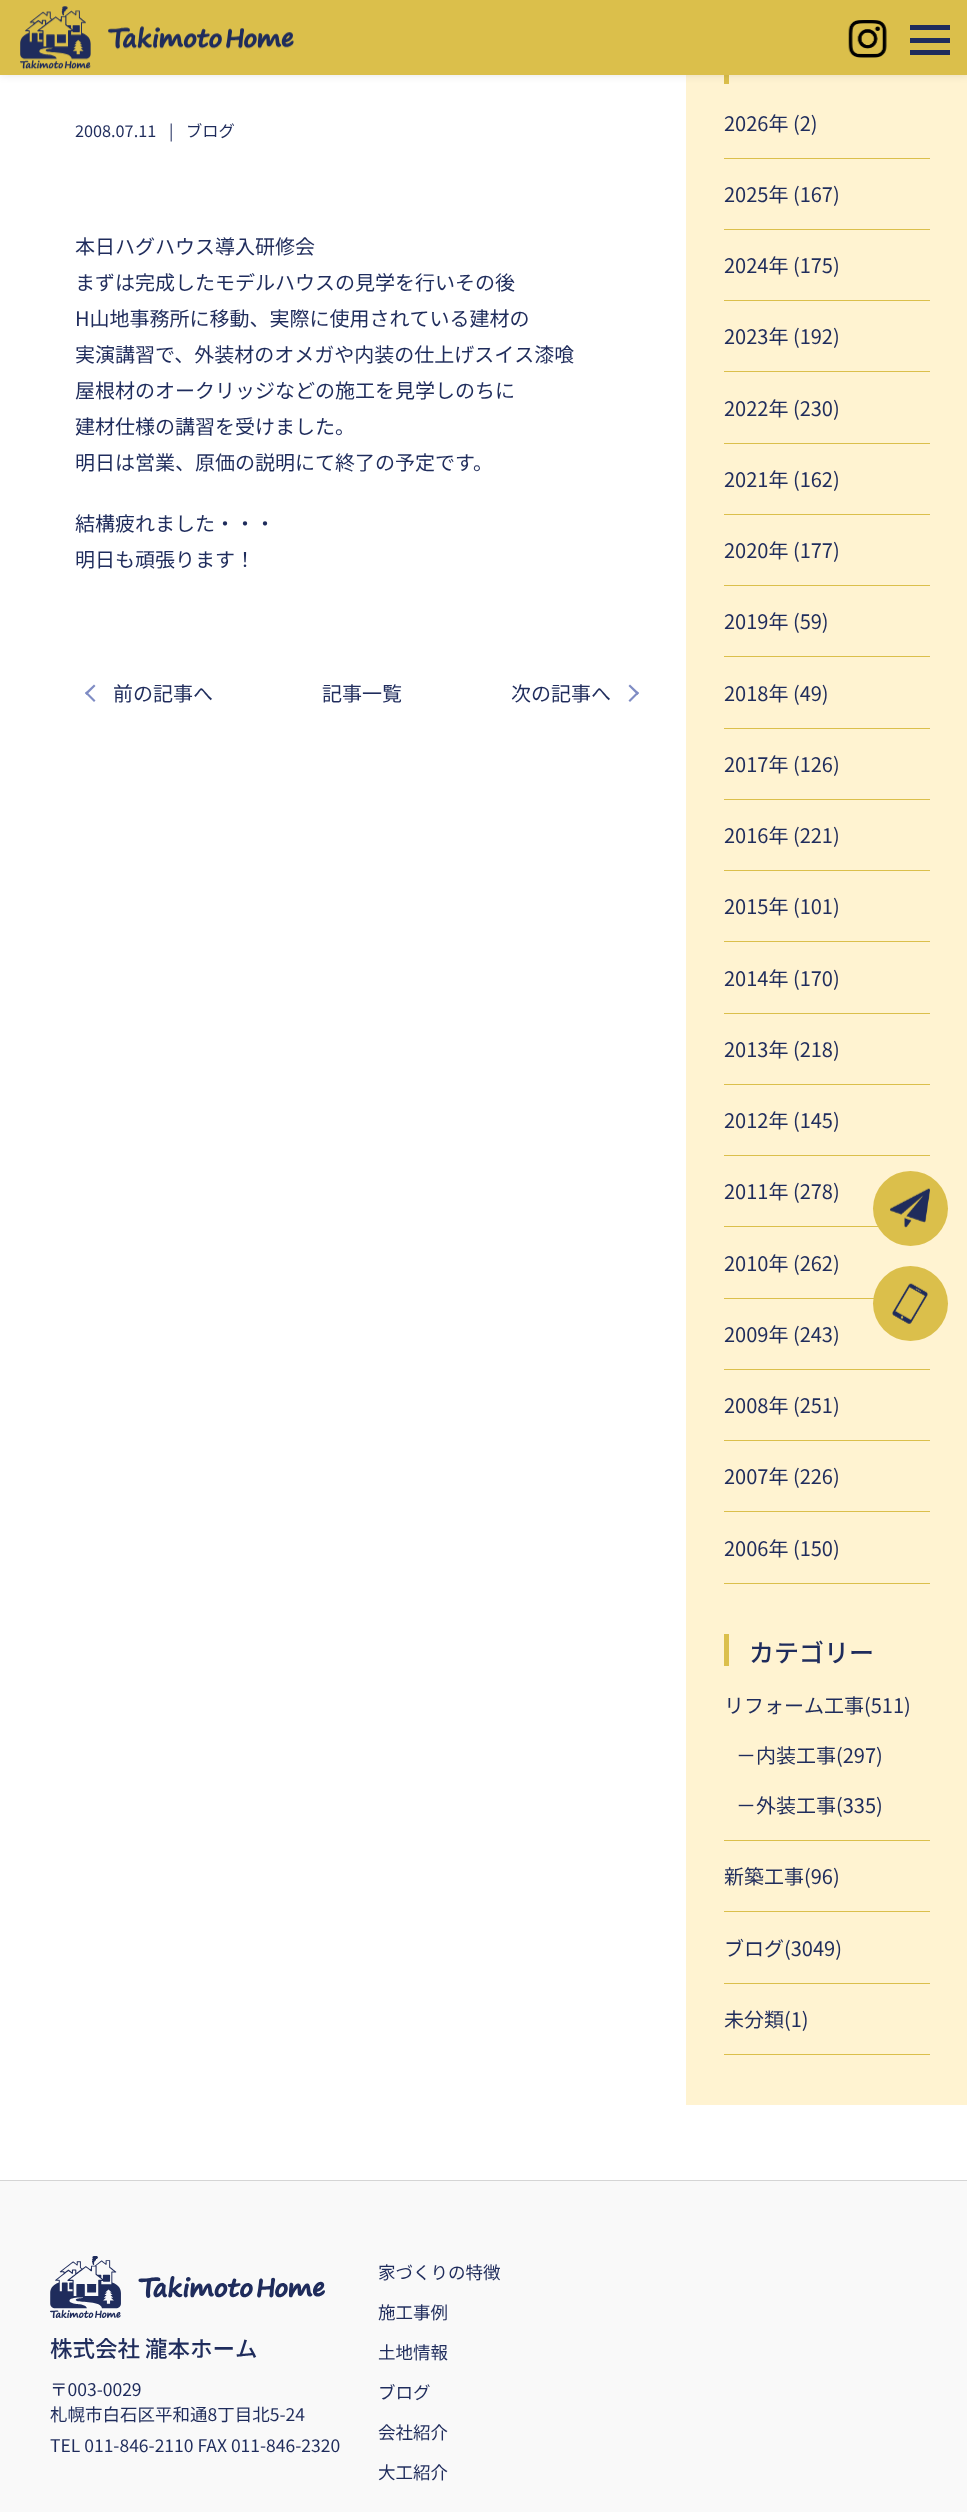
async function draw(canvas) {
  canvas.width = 967
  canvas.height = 2512
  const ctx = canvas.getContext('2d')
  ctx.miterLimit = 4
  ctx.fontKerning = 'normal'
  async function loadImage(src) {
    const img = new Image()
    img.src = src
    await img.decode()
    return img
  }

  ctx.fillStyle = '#fff'
  ctx.fillRect(0, 0, 967, 2512)
  ctx.fillStyle = '#fff3d1'
  ctx.fillRect(686, 75, 281, 2030)
  ctx.fillStyle = '#dbbf4b'
  ctx.fillRect(724, 75, 5, 9)
  ctx.fillStyle = '#0000001a'
  ctx.filter = 'blur(4px)'
  ctx.beginPath()
  ctx.rect(0, 0, 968, 75)
  ctx.fill()
  ctx.filter = 'none'
  ctx.fillStyle = '#dbbf4b'
  ctx.fillRect(0, 0, 967, 75)
  ctx.drawImage(await loadImage('image0.png'), 20, 6, 274, 64)
  ctx.drawImage(await loadImage('image1.png'), 848, 20, 39, 38)
  ctx.fillStyle = '#1f2c5c'
  ctx.fillRect(910, 25, 40, 5)
  ctx.fillRect(910, 38, 40, 5)
  ctx.fillRect(910, 50, 40, 5)
  ctx.font = '16.25px Noto Sans JP'
  ctx.fillText('2008.07.11', 75, 137)
  ctx.fillText('|', 169, 137)
  ctx.fillText('ブログ', 186, 137)
  ctx.font = '20px Noto Sans JP'
  ctx.fillText('本日ハグハウス導入研修会', 75, 254)
  ctx.fillText('まずは完成したモデルハウスの見学を行いその後', 75, 290)
  ctx.fillText('H山地事務所に移動、実際に使用されている建材の', 75, 326)
  ctx.fillText('実演講習で、外装材のオメガや内装の仕上げスイス漆喰', 75, 362)
  ctx.fillText('屋根材のオークリッジなどの施工を見学しのちに', 75, 398)
  ctx.fillText('建材仕様の講習を受けました。', 75, 434)
  ctx.fillText('明日は営業、原価の説明にて終了の予定です。', 75, 470)
  ctx.fillText('結構疲れました・・・', 75, 531)
  ctx.fillText('明日も頑張ります！', 75, 567)
  ctx.fillStyle = '#7f8cc4'
  ctx.beginPath()
  ctx.moveTo(86.5, 691.5)
  ctx.lineTo(95.5, 700.5)
  ctx.lineTo(94, 702)
  ctx.lineTo(85, 693)
  ctx.closePath()
  ctx.fill()
  ctx.beginPath()
  ctx.moveTo(94, 684.5)
  ctx.lineTo(95.5, 686)
  ctx.lineTo(86.5, 695)
  ctx.lineTo(85, 693)
  ctx.closePath()
  ctx.fill()
  ctx.fillStyle = '#1f2c5c'
  ctx.fillText('前の記事へ', 113, 701)
  ctx.fillText('記事一覧', 322, 701)
  ctx.fillText('次の記事へ', 511, 701)
  ctx.fillStyle = '#7f8cc4'
  ctx.beginPath()
  ctx.moveTo(630, 684.5)
  ctx.lineTo(639, 693)
  ctx.lineTo(637.5, 695)
  ctx.lineTo(628.5, 686)
  ctx.closePath()
  ctx.fill()
  ctx.beginPath()
  ctx.moveTo(637.5, 691.5)
  ctx.lineTo(639, 693)
  ctx.lineTo(630, 702)
  ctx.lineTo(628.5, 700.5)
  ctx.closePath()
  ctx.fill()
  ctx.fillStyle = '#dbbf4b'
  ctx.fillRect(724, 158, 206, 1)
  ctx.fillStyle = '#1f2c5c'
  ctx.fillText('2026年 (2)', 724, 131)
  ctx.fillStyle = '#dbbf4b'
  ctx.fillRect(724, 229, 206, 1)
  ctx.fillStyle = '#1f2c5c'
  ctx.fillText('2025年 (167)', 724, 202)
  ctx.fillStyle = '#dbbf4b'
  ctx.fillRect(724, 300, 206, 1)
  ctx.fillStyle = '#1f2c5c'
  ctx.fillText('2024年 (175)', 724, 273)
  ctx.fillStyle = '#dbbf4b'
  ctx.fillRect(724, 371, 206, 1)
  ctx.fillStyle = '#1f2c5c'
  ctx.fillText('2023年 (192)', 724, 344)
  ctx.fillStyle = '#dbbf4b'
  ctx.fillRect(724, 443, 206, 1)
  ctx.fillStyle = '#1f2c5c'
  ctx.fillText('2022年 (230)', 724, 416)
  ctx.fillStyle = '#dbbf4b'
  ctx.fillRect(724, 514, 206, 1)
  ctx.fillStyle = '#1f2c5c'
  ctx.fillText('2021年 (162)', 724, 487)
  ctx.fillStyle = '#dbbf4b'
  ctx.fillRect(724, 585, 206, 1)
  ctx.fillStyle = '#1f2c5c'
  ctx.fillText('2020年 (177)', 724, 558)
  ctx.fillStyle = '#dbbf4b'
  ctx.fillRect(724, 656, 206, 1)
  ctx.fillStyle = '#1f2c5c'
  ctx.fillText('2019年 (59)', 724, 629)
  ctx.fillStyle = '#dbbf4b'
  ctx.fillRect(724, 728, 206, 1)
  ctx.fillStyle = '#1f2c5c'
  ctx.fillText('2018年 (49)', 724, 701)
  ctx.fillStyle = '#dbbf4b'
  ctx.fillRect(724, 799, 206, 1)
  ctx.fillStyle = '#1f2c5c'
  ctx.fillText('2017年 (126)', 724, 772)
  ctx.fillStyle = '#dbbf4b'
  ctx.fillRect(724, 870, 206, 1)
  ctx.fillStyle = '#1f2c5c'
  ctx.fillText('2016年 (221)', 724, 843)
  ctx.fillStyle = '#dbbf4b'
  ctx.fillRect(724, 941, 206, 1)
  ctx.fillStyle = '#1f2c5c'
  ctx.fillText('2015年 (101)', 724, 914)
  ctx.fillStyle = '#dbbf4b'
  ctx.fillRect(724, 1013, 206, 1)
  ctx.fillStyle = '#1f2c5c'
  ctx.fillText('2014年 (170)', 724, 986)
  ctx.fillStyle = '#dbbf4b'
  ctx.fillRect(724, 1084, 206, 1)
  ctx.fillStyle = '#1f2c5c'
  ctx.fillText('2013年 (218)', 724, 1057)
  ctx.fillStyle = '#dbbf4b'
  ctx.fillRect(724, 1155, 206, 1)
  ctx.fillStyle = '#1f2c5c'
  ctx.fillText('2012年 (145)', 724, 1128)
  ctx.fillStyle = '#dbbf4b'
  ctx.fillRect(724, 1226, 154, 1)
  ctx.fillStyle = '#1f2c5c'
  ctx.fillText('2011年 (278)', 724, 1199)
  ctx.fillStyle = '#dbbf4b'
  ctx.fillRect(724, 1298, 150, 1)
  ctx.fillStyle = '#1f2c5c'
  ctx.fillText('2010年 (262)', 724, 1271)
  ctx.fillStyle = '#dbbf4b'
  ctx.fillRect(724, 1369, 206, 1)
  ctx.fillStyle = '#1f2c5c'
  ctx.fillText('2009年 (243)', 724, 1342)
  ctx.fillStyle = '#dbbf4b'
  ctx.fillRect(724, 1440, 206, 1)
  ctx.fillStyle = '#1f2c5c'
  ctx.fillText('2008年 (251)', 724, 1413)
  ctx.fillStyle = '#dbbf4b'
  ctx.fillRect(724, 1511, 206, 1)
  ctx.fillStyle = '#1f2c5c'
  ctx.fillText('2007年 (226)', 724, 1484)
  ctx.fillStyle = '#dbbf4b'
  ctx.fillRect(724, 1583, 206, 1)
  ctx.fillStyle = '#1f2c5c'
  ctx.fillText('2006年 (150)', 724, 1556)
  ctx.fillStyle = '#dbbf4b'
  ctx.fillRect(724, 1634, 5, 32)
  ctx.font = '500 25px Noto Sans JP'
  ctx.fillStyle = '#1f2c5c'
  ctx.fillText('カテゴリー', 749, 1662)
  ctx.fillStyle = '#dbbf4b'
  ctx.fillRect(724, 1840, 206, 1)
  ctx.font = '20px Noto Sans JP'
  ctx.fillStyle = '#1f2c5c'
  ctx.fillText('リフォーム工事(511)', 724, 1713)
  ctx.fillText('－内装工事(297)', 736, 1763)
  ctx.fillText('－外装工事(335)', 736, 1813)
  ctx.fillStyle = '#dbbf4b'
  ctx.fillRect(724, 1911, 206, 1)
  ctx.fillStyle = '#1f2c5c'
  ctx.fillText('新築工事(96)', 724, 1884)
  ctx.fillStyle = '#dbbf4b'
  ctx.fillRect(724, 1983, 206, 1)
  ctx.fillStyle = '#1f2c5c'
  ctx.fillText('ブログ(3049)', 724, 1956)
  ctx.fillStyle = '#dbbf4b'
  ctx.fillRect(724, 2054, 206, 1)
  ctx.fillStyle = '#1f2c5c'
  ctx.fillText('未分類(1)', 724, 2027)
  ctx.fillStyle = '#dbbf4b'
  ctx.beginPath()
  ctx.arc(910.5, 1208.5, 37.5, 0, 2 * Math.PI)
  ctx.fill()
  ctx.drawImage(await loadImage('image2.png'), 890, 1188, 40, 40)
  ctx.beginPath()
  ctx.arc(910.5, 1303.5, 37.5, 0, 2 * Math.PI)
  ctx.fill()
  ctx.drawImage(await loadImage('image3.png'), 892, 1283, 36, 41)
  ctx.fillStyle = '#d5d5d5'
  ctx.fillRect(0, 2180, 967, 1)
  ctx.fillStyle = '#f9f9f9'
  ctx.fillRect(0, 2181, 967, 331)
  ctx.drawImage(await loadImage('image4.png'), 50, 2256, 275, 62)
  ctx.font = '500 22.5px Noto Sans JP'
  ctx.fillStyle = '#1f2c5c'
  ctx.fillText('株式会社 瀧本ホーム', 50, 2357)
  ctx.font = '17.5px Noto Sans JP'
  ctx.fillText('〒003-0029', 50, 2396)
  ctx.fillText('札幌市白石区平和通8丁目北5-24', 50, 2421)
  ctx.fillText('TEL 011-846-2110 FAX 011-846-2320', 50, 2452)
  ctx.fillText('家づくりの特徴', 378, 2279)
  ctx.fillText('施工事例', 378, 2319)
  ctx.fillText('土地情報', 378, 2359)
  ctx.fillText('ブログ', 378, 2399)
  ctx.fillText('会社紹介', 378, 2439)
  ctx.fillText('大工紹介', 378, 2479)
}

draw(document.querySelector('canvas'))
